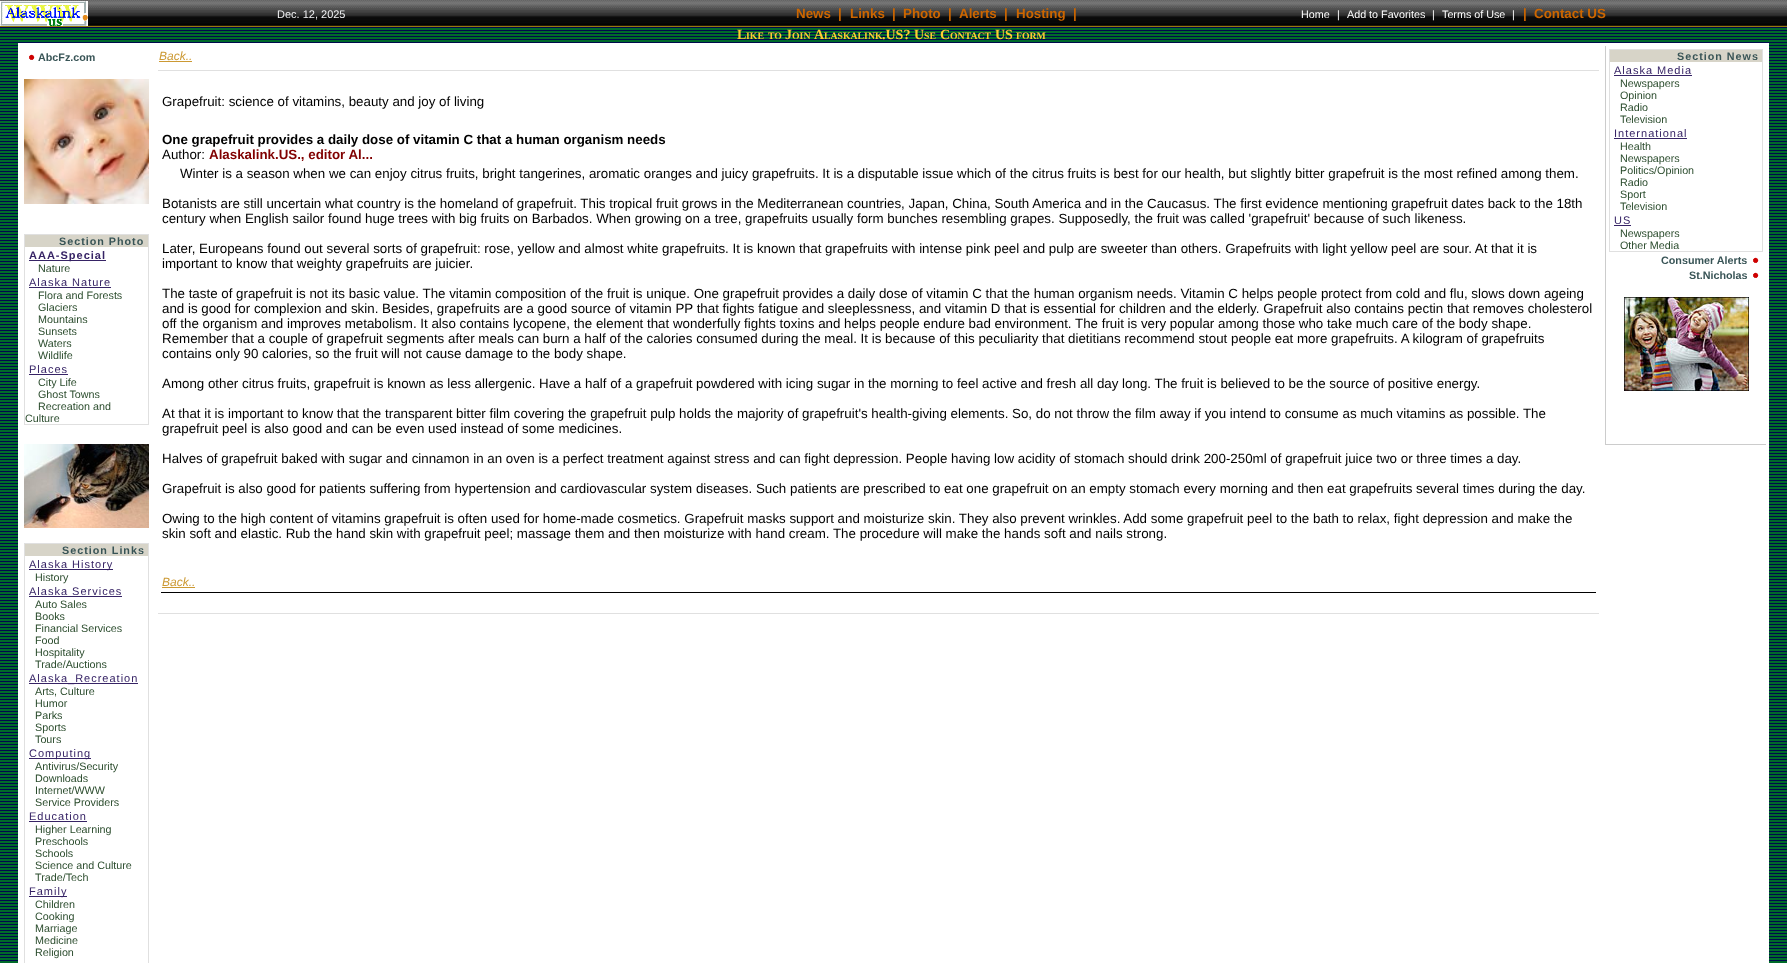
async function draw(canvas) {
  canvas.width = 1787
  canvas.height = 963
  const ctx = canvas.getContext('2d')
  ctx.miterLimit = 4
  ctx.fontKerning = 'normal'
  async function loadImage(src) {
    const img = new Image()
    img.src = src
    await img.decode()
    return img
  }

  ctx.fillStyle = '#fff'
  ctx.fillRect(0, 0, 1787, 963)
  ctx.drawImage(await loadImage('image0.png'), 0, 27, 1787, 936)
  ctx.drawImage(await loadImage('image1.png'), 0, 0, 1787, 27)
  ctx.drawImage(await loadImage('image2.png'), 0, 1, 88, 25)
  ctx.font = '11px Liberation Sans'
  ctx.fillStyle = '#f0f1f3'
  ctx.fillText('Dec. 12, 2025', 277, 18)
  ctx.font = 'bold 13.33px Liberation Sans'
  ctx.fillStyle = '#c60'
  ctx.fillText('News', 796, 18)
  ctx.fillText('|', 838, 18)
  ctx.fillText('Links', 850, 18)
  ctx.fillText('|', 892, 18)
  ctx.fillText('Photo', 903, 18)
  ctx.fillText('|', 948, 18)
  ctx.fillText('Alerts', 959, 18)
  ctx.fillText('|', 1004, 18)
  ctx.fillText('Hosting', 1016, 18)
  ctx.fillText('|', 1073, 18)
  ctx.font = '10.75px Liberation Sans'
  ctx.fillStyle = '#fff'
  ctx.fillText('Home', 1301, 18)
  ctx.fillText('|', 1337, 18)
  ctx.fillText('Add to Favorites', 1347, 18)
  ctx.fillText('|', 1432, 18)
  ctx.fillText('Terms of Use', 1442, 18)
  ctx.fillText('|', 1512, 18)
  ctx.drawImage(await loadImage('image3.png'), 1519, 0, 268, 8)
  ctx.font = 'bold 13.33px Liberation Sans'
  ctx.fillStyle = '#c60'
  ctx.fillText('|', 1523, 18)
  ctx.fillText('Contact US', 1534, 18)
  ctx.font = 'bold 14px Liberation Serif'
  ctx.fillStyle = '#fc3'
  ctx.fillText('L', 737, 39)
  ctx.font = 'bold 9.75px Liberation Serif'
  ctx.fillText('IKE', 746, 39)
  ctx.fillText('TO', 768, 39)
  ctx.font = 'bold 14px Liberation Serif'
  ctx.fillText('J', 785, 39)
  ctx.font = 'bold 9.75px Liberation Serif'
  ctx.fillText('OIN', 792, 39)
  ctx.font = 'bold 14px Liberation Serif'
  ctx.fillText('A', 814, 39)
  ctx.font = 'bold 9.75px Liberation Serif'
  ctx.fillText('LASKALINK', 824, 39)
  ctx.font = 'bold 14px Liberation Serif'
  ctx.fillText('.US? U', 882, 39)
  ctx.font = 'bold 9.75px Liberation Serif'
  ctx.fillText('SE', 924, 39)
  ctx.font = 'bold 14px Liberation Serif'
  ctx.fillText('C', 940, 39)
  ctx.font = 'bold 9.75px Liberation Serif'
  ctx.fillText('ONTACT', 950, 39)
  ctx.font = 'bold 14px Liberation Serif'
  ctx.fillText('US', 995, 39)
  ctx.font = 'bold 9.75px Liberation Serif'
  ctx.fillText('FORM', 1016, 39)
  ctx.fillStyle = '#fff'
  ctx.fillRect(18, 43, 1751, 920)
  ctx.drawImage(await loadImage('image4.png'), 29, 54, 6, 6)
  ctx.font = 'bold 10.75px Liberation Sans'
  ctx.fillStyle = '#385456'
  ctx.fillText('AbcFz.com', 38, 61)
  ctx.drawImage(await loadImage('image5.png'), 24, 79, 125, 125)
  ctx.strokeStyle = '#e0e0e0'
  ctx.strokeRect(24.5, 234.5, 124, 190)
  ctx.fillStyle = '#d7d4c8'
  ctx.fillRect(25, 235, 123, 12)
  ctx.letterSpacing = '1px'
  ctx.fillStyle = '#385456'
  ctx.fillText('Section Photo', 59, 245)
  ctx.fillStyle = '#362365'
  ctx.fillRect(29, 260, 77, 1)
  ctx.font = 'bold 11px Liberation Sans'
  ctx.fillText('AAA-Special', 29, 259)
  ctx.letterSpacing = '0px'
  ctx.font = '10.75px Liberation Sans'
  ctx.fillStyle = '#2b4c2d'
  ctx.fillText('Nature', 38, 272)
  ctx.letterSpacing = '1px'
  ctx.font = '11px Liberation Sans'
  ctx.fillStyle = '#362365'
  ctx.fillText('Alaska Nature', 29, 286)
  ctx.fillRect(29, 287, 82, 1)
  ctx.letterSpacing = '0px'
  ctx.font = '10.75px Liberation Sans'
  ctx.fillStyle = '#2b4c2d'
  ctx.fillText('Flora and Forests', 38, 299)
  ctx.fillText('Glaciers', 38, 311)
  ctx.fillText('Mountains', 38, 323)
  ctx.fillText('Sunsets', 38, 335)
  ctx.fillText('Waters', 38, 347)
  ctx.fillText('Wildlife', 38, 359)
  ctx.letterSpacing = '1px'
  ctx.font = '11px Liberation Sans'
  ctx.fillStyle = '#362365'
  ctx.fillText('Places', 29, 373)
  ctx.fillRect(29, 374, 39, 1)
  ctx.letterSpacing = '0px'
  ctx.font = '10.75px Liberation Sans'
  ctx.fillStyle = '#2b4c2d'
  ctx.fillText('City Life', 38, 386)
  ctx.fillText('Ghost Towns', 38, 398)
  ctx.fillText('Recreation and', 38, 410)
  ctx.fillText('Culture', 25, 422)
  ctx.drawImage(await loadImage('image6.png'), 24, 444, 125, 84)
  ctx.strokeRect(24.5, 543.5, 124, 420)
  ctx.fillStyle = '#d7d4c8'
  ctx.fillRect(25, 544, 123, 12)
  ctx.letterSpacing = '1px'
  ctx.font = 'bold 10.75px Liberation Sans'
  ctx.fillStyle = '#385456'
  ctx.fillText('Section Links', 62, 554)
  ctx.fillStyle = '#362365'
  ctx.fillRect(29, 569, 84, 1)
  ctx.font = '11px Liberation Sans'
  ctx.fillText('Alaska History', 29, 568)
  ctx.letterSpacing = '0px'
  ctx.font = '10.75px Liberation Sans'
  ctx.fillStyle = '#2b4c2d'
  ctx.fillText('History', 35, 581)
  ctx.letterSpacing = '1px'
  ctx.font = '11px Liberation Sans'
  ctx.fillStyle = '#362365'
  ctx.fillText('Alaska Services', 29, 595)
  ctx.fillRect(29, 596, 93, 1)
  ctx.letterSpacing = '0px'
  ctx.font = '10.75px Liberation Sans'
  ctx.fillStyle = '#2b4c2d'
  ctx.fillText('Auto Sales', 35, 608)
  ctx.fillText('Books', 35, 620)
  ctx.fillText('Financial Services', 35, 632)
  ctx.fillText('Food', 35, 644)
  ctx.fillText('Hospitality', 35, 656)
  ctx.fillText('Trade/Auctions', 35, 668)
  ctx.fillStyle = '#362365'
  ctx.fillRect(29, 683, 109, 1)
  ctx.letterSpacing = '1px'
  ctx.font = '11px Liberation Sans'
  ctx.fillText('Alaska_Recreation', 29, 682)
  ctx.letterSpacing = '0px'
  ctx.font = '10.75px Liberation Sans'
  ctx.fillStyle = '#2b4c2d'
  ctx.fillText('Arts, Culture', 35, 695)
  ctx.fillText('Humor', 35, 707)
  ctx.fillText('Parks', 35, 719)
  ctx.fillText('Sports', 35, 731)
  ctx.fillText('Tours', 35, 743)
  ctx.fillStyle = '#362365'
  ctx.fillRect(29, 758, 62, 1)
  ctx.letterSpacing = '1px'
  ctx.font = '11px Liberation Sans'
  ctx.fillText('Computing', 29, 757)
  ctx.letterSpacing = '0px'
  ctx.font = '10.75px Liberation Sans'
  ctx.fillStyle = '#2b4c2d'
  ctx.fillText('Antivirus/Security', 35, 770)
  ctx.fillText('Downloads', 35, 782)
  ctx.fillText('Internet/WWW', 35, 794)
  ctx.fillText('Service Providers', 35, 806)
  ctx.letterSpacing = '1px'
  ctx.font = '11px Liberation Sans'
  ctx.fillStyle = '#362365'
  ctx.fillText('Education', 29, 820)
  ctx.fillRect(29, 821, 58, 1)
  ctx.letterSpacing = '0px'
  ctx.font = '10.75px Liberation Sans'
  ctx.fillStyle = '#2b4c2d'
  ctx.fillText('Higher Learning', 35, 833)
  ctx.fillText('Preschools', 35, 845)
  ctx.fillText('Schools', 35, 857)
  ctx.fillText('Science and Culture', 35, 869)
  ctx.fillText('Trade/Tech', 35, 881)
  ctx.fillStyle = '#362365'
  ctx.fillRect(29, 896, 38, 1)
  ctx.letterSpacing = '1px'
  ctx.font = '11px Liberation Sans'
  ctx.fillText('Family', 29, 895)
  ctx.letterSpacing = '0px'
  ctx.font = '10.75px Liberation Sans'
  ctx.fillStyle = '#2b4c2d'
  ctx.fillText('Children', 35, 908)
  ctx.fillText('Cooking', 35, 920)
  ctx.fillText('Marriage', 35, 932)
  ctx.fillText('Medicine', 35, 944)
  ctx.fillText('Religion', 35, 956)
  ctx.font = 'italic 12px Liberation Sans'
  ctx.fillStyle = '#c93'
  ctx.fillText('Back..', 159, 60)
  ctx.fillRect(159, 61, 33, 1)
  ctx.fillStyle = '#e0e0e0'
  ctx.fillRect(158, 70, 1441, 1)
  ctx.fillRect(158, 613, 1441, 1)
  ctx.font = '13.33px Liberation Sans'
  ctx.fillStyle = '#000'
  ctx.fillText('Grapefruit: science of vitamins, beauty and joy of living', 162, 106)
  ctx.font = 'bold 13.33px Liberation Sans'
  ctx.fillText('One grapefruit provides a daily dose of vitamin C that a human organism needs', 162, 144)
  ctx.font = '13.33px Liberation Sans'
  ctx.fillText('Author:', 162, 159)
  ctx.font = 'bold 13.33px Liberation Sans'
  ctx.fillStyle = '#800000'
  ctx.fillText('Alaskalink.US., editor Al...', 209, 159)
  ctx.font = '13.33px Liberation Sans'
  ctx.fillStyle = '#000'
  ctx.fillText('Winter is a season when we can enjoy citrus fruits, bright tangerines, aromatic oranges and juicy grapefruits. It is a disputable issue which of the citrus fruits is best for our health, but slightly bitter grapefruit is the most refined among them.', 180, 178)
  ctx.fillText('Botanists are still uncertain what country is the homeland of grapefruit. This tropical fruit grows in the Mediterranean countries, Japan, China, South America and in the Caucasus. The first evidence mentioning grapefruit dates back to the 18th', 162, 208)
  ctx.fillText('century when English sailor found huge trees with big fruits on Barbados. When growing on a tree, grapefruits usually form bunches resembling grapes. Supposedly, the fruit was called \'grapefruit\' because of such likeness.', 162, 223)
  ctx.fillText('Later, Europeans found out several sorts of grapefruit: rose, yellow and almost white grapefruits. It is known that grapefruits with intense pink peel and pulp are sweeter than others. Grapefruits with light yellow peel are sour. At that it is', 162, 253)
  ctx.fillText('important to know that weighty grapefruits are juicier.', 162, 268)
  ctx.fillText('The taste of grapefruit is not its basic value. The vitamin composition of the fruit is unique. One grapefruit provides a daily dose of vitamin C that the human organism needs. Vitamin C helps people protect from cold and flu, slows down ageing', 162, 298)
  ctx.fillText('and is good for complexion and skin. Besides, grapefruits are a good source of vitamin PP that fights fatigue and sleeplessness, and vitamin D that is essential for children and the elderly. Grapefruit also contains pectin that removes cholesterol', 162, 313)
  ctx.fillText('off the organism and improves metabolism. It also contains lycopene, the element that wonderfully fights toxins and helps people endure bad environment. The fruit is very popular among those who take much care of the body shape.', 162, 328)
  ctx.fillText('Remember that a couple of grapefruit segments after meals can burn a half of the calories consumed during the meal. It is because of this peculiarity that dietitians recommend stout people eat more grapefruits. A kilogram of grapefruits', 162, 343)
  ctx.fillText('contains only 90 calories, so the fruit will not cause damage to the body shape.', 162, 358)
  ctx.fillText('Among other citrus fruits, grapefruit is known as less allergenic. Have a half of a grapefruit powdered with icing sugar in the morning to feel active and fresh all day long. The fruit is believed to be the source of positive energy.', 162, 388)
  ctx.fillText('At that it is important to know that the transparent bitter film covering the grapefruit pulp holds the majority of grapefruit\'s health-giving elements. So, do not throw the film away if you intend to consume as much vitamins as possible. The', 162, 418)
  ctx.fillText('grapefruit peel is also good and can be even used instead of some medicines.', 162, 433)
  ctx.fillText('Halves of grapefruit baked with sugar and cinnamon in an oven is a perfect treatment against stress and can fight depression. People having low acidity of stomach should drink 200-250ml of grapefruit juice two or three times a day.', 162, 463)
  ctx.fillText('Grapefruit is also good for patients suffering from hypertension and cardiovascular system diseases. Such patients are prescribed to eat one grapefruit on an empty stomach every morning and then eat grapefruits several times during the day.', 162, 493)
  ctx.fillText('Owing to the high content of vitamins grapefruit is often used for home-made cosmetics. Grapefruit masks support and moisturize skin. They also prevent wrinkles. Add some grapefruit peel to the bath to relax, fight depression and make the', 162, 523)
  ctx.fillText('skin soft and elastic. Rub the hand skin with grapefruit peel; massage them and then moisturize with hand cream. The procedure will make the hands soft and nails strong.', 162, 538)
  ctx.font = 'italic 12px Liberation Sans'
  ctx.fillStyle = '#c93'
  ctx.fillText('Back..', 162, 586)
  ctx.fillRect(162, 587, 33, 1)
  ctx.fillStyle = '#000'
  ctx.fillRect(161, 592, 1435, 1)
  ctx.fillStyle = '#ccc'
  ctx.fillRect(1605, 444, 161, 1)
  ctx.fillRect(1605, 46, 1, 399)
  ctx.strokeRect(1609.5, 49.5, 153, 202)
  ctx.fillStyle = '#d7d4c8'
  ctx.fillRect(1610, 50, 152, 12)
  ctx.letterSpacing = '1px'
  ctx.font = 'bold 10.75px Liberation Sans'
  ctx.fillStyle = '#385456'
  ctx.fillText('Section News', 1677, 60)
  ctx.font = '11px Liberation Sans'
  ctx.fillStyle = '#362365'
  ctx.fillText('Alaska Media', 1614, 74)
  ctx.fillRect(1614, 75, 78, 1)
  ctx.letterSpacing = '0px'
  ctx.font = '10.75px Liberation Sans'
  ctx.fillStyle = '#2b4c2d'
  ctx.fillText('Newspapers', 1620, 87)
  ctx.fillText('Opinion', 1620, 99)
  ctx.fillText('Radio', 1620, 111)
  ctx.fillText('Television', 1620, 123)
  ctx.letterSpacing = '1px'
  ctx.font = '11px Liberation Sans'
  ctx.fillStyle = '#362365'
  ctx.fillText('International', 1614, 137)
  ctx.fillRect(1614, 138, 73, 1)
  ctx.letterSpacing = '0px'
  ctx.font = '10.75px Liberation Sans'
  ctx.fillStyle = '#2b4c2d'
  ctx.fillText('Health', 1620, 150)
  ctx.fillText('Newspapers', 1620, 162)
  ctx.fillText('Politics/Opinion', 1620, 174)
  ctx.fillText('Radio', 1620, 186)
  ctx.fillText('Sport', 1620, 198)
  ctx.fillText('Television', 1620, 210)
  ctx.letterSpacing = '1px'
  ctx.font = '11px Liberation Sans'
  ctx.fillStyle = '#362365'
  ctx.fillText('US', 1614, 224)
  ctx.fillRect(1614, 225, 17, 1)
  ctx.letterSpacing = '0px'
  ctx.font = '10.75px Liberation Sans'
  ctx.fillStyle = '#2b4c2d'
  ctx.fillText('Newspapers', 1620, 237)
  ctx.fillText('Other Media', 1620, 249)
  ctx.font = 'bold 10.75px Liberation Sans'
  ctx.fillStyle = '#385456'
  ctx.fillText('Consumer Alerts', 1661, 264)
  ctx.drawImage(await loadImage('image4.png'), 1753, 257, 6, 6)
  ctx.fillText('St.Nicholas', 1689, 279)
  ctx.drawImage(await loadImage('image4.png'), 1753, 272, 6, 6)
  ctx.drawImage(await loadImage('image7.png'), 1624, 297, 125, 94)
}

draw(document.querySelector('canvas'))
